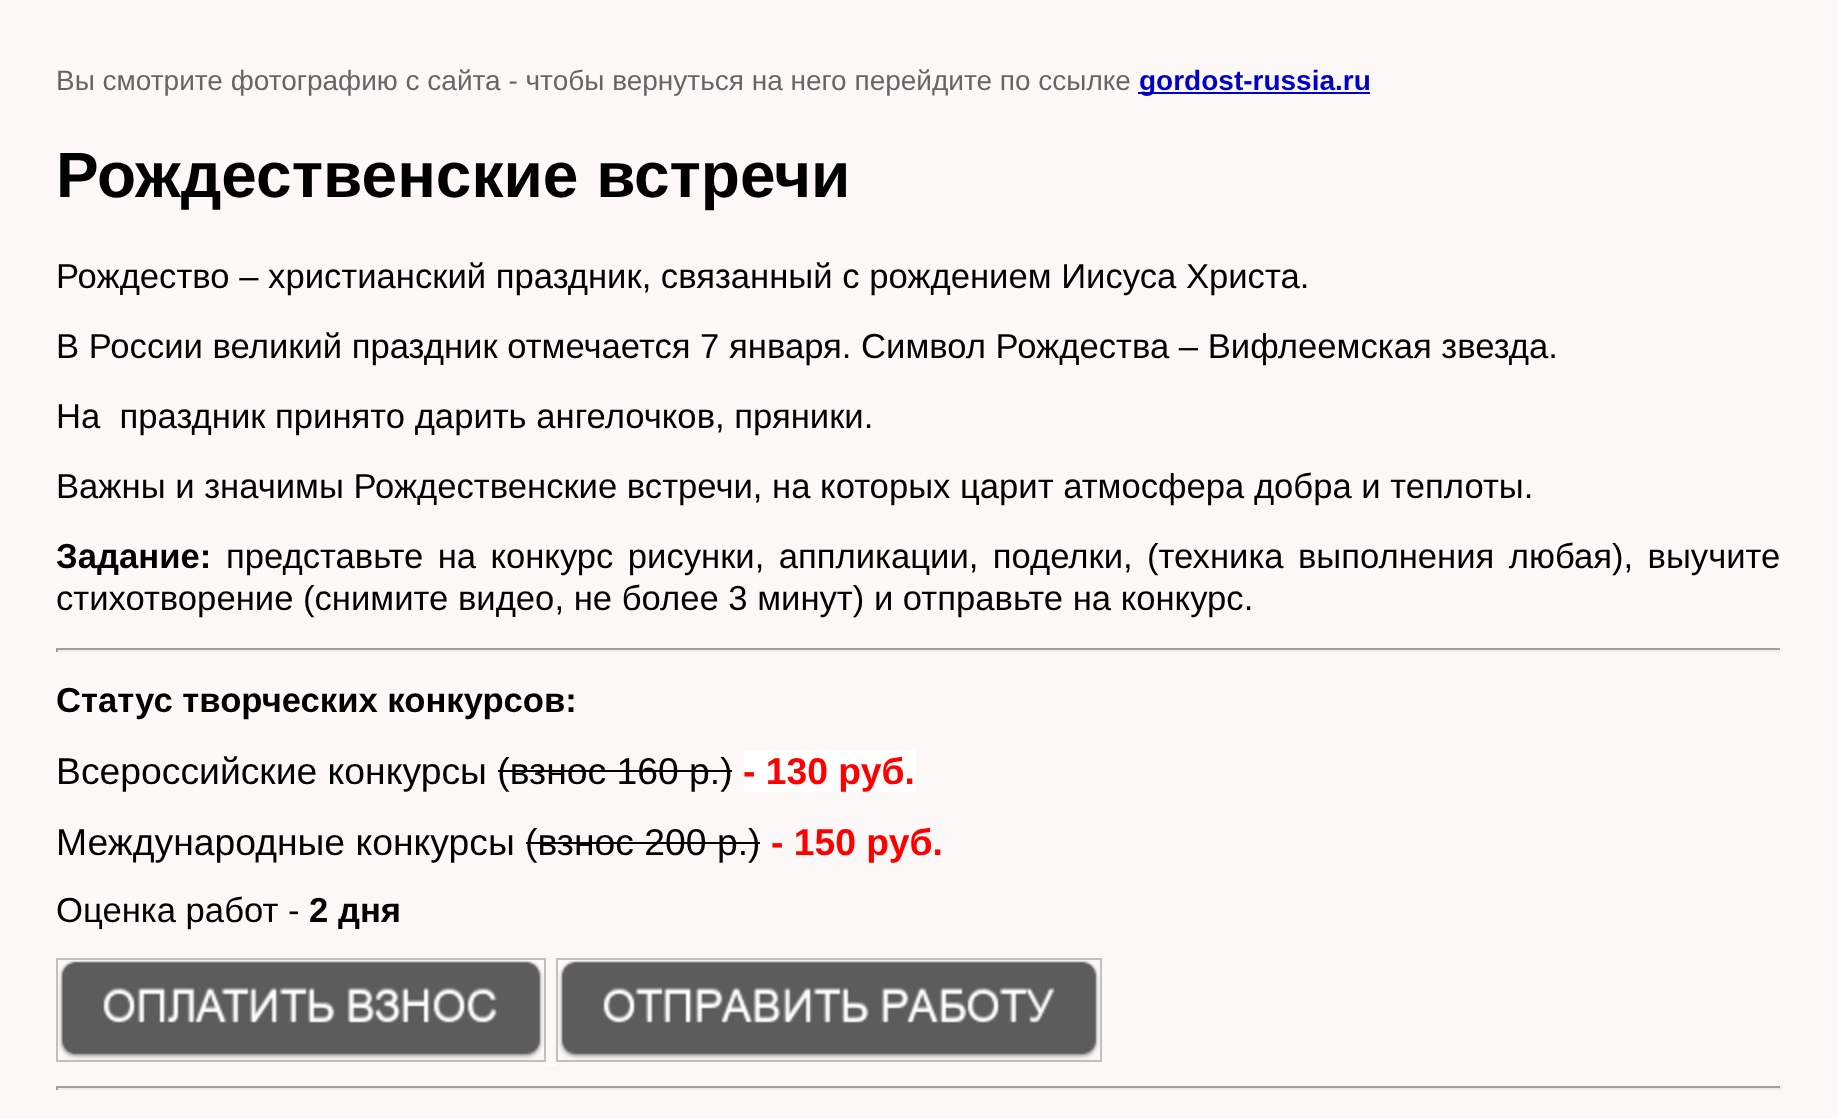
async function draw(canvas) {
  canvas.width = 1838
  canvas.height = 1119
  const ctx = canvas.getContext('2d')
  ctx.miterLimit = 4
  ctx.fontKerning = 'normal'
  async function loadImage(src) {
    const img = new Image()
    img.src = src
    await img.decode()
    return img
  }

  ctx.fillStyle = '#fcf8f8'
  ctx.fillRect(0, 0, 1838, 1119)
  ctx.font = '28px Liberation Sans'
  ctx.fillStyle = '#666'
  ctx.fillText('Вы смотрите фотографию с сайта - чтобы вернуться на него перейдите по ссылке', 56, 90)
  ctx.fillStyle = '#00c'
  ctx.fillRect(1138, 92, 232, 2)
  ctx.font = 'bold 28px Liberation Sans'
  ctx.fillText('gordost-russia.ru', 1139, 90)
  ctx.font = 'bold 64px Liberation Sans'
  ctx.fillStyle = '#000'
  ctx.fillText('Рождественские встречи', 56, 197)
  ctx.font = '34.65px Liberation Sans'
  ctx.fillText('Рождество – христианский праздник, связанный с рождением Иисуса Христа.', 56, 288)
  ctx.fillText('В России великий праздник отмечается 7 января. Символ Рождества – Вифлеемская звезда.', 56, 358)
  ctx.fillText('На  праздник принято дарить ангелочков, пряники.', 56, 428)
  ctx.fillText('Важны и значимы Рождественские встречи, на которых царит атмосфера добра и теплоты.', 56, 498)
  ctx.font = 'bold 34.65px Liberation Sans'
  ctx.fillText('Задание:', 56, 568)
  ctx.wordSpacing = '4.75px'
  ctx.font = '34.65px Liberation Sans'
  ctx.fillText('представьте на конкурс рисунки, аппликации, поделки, (техника выполнения любая), выучите', 226, 568)
  ctx.wordSpacing = '0px'
  ctx.fillText('стихотворение (снимите видео, не более 3 минут) и отправьте на конкурс.', 56, 610)
  ctx.fillStyle = '#9f9f9f'
  ctx.fillRect(56, 648, 1726, 2)
  ctx.fillStyle = '#eee'
  ctx.fillRect(1780, 648, 2, 4)
  ctx.fillRect(56, 650, 1726, 2)
  ctx.fillStyle = '#9f9f9f'
  ctx.fillRect(56, 648, 2, 4)
  ctx.font = 'bold 34.65px Liberation Sans'
  ctx.fillStyle = '#000'
  ctx.fillText('Статус творческих конкурсов:', 56, 712)
  ctx.font = '37.3px Liberation Sans'
  ctx.fillText('Всероссийские конкурсы (взнос 160 р.)', 56, 784)
  ctx.fillRect(498, 770, 234, 2)
  ctx.fillStyle = '#fff'
  ctx.fillRect(744, 750, 172, 42)
  ctx.font = 'bold 37.3px Liberation Sans'
  ctx.fillStyle = '#f00'
  ctx.fillText('- 130 руб.', 743, 784)
  ctx.font = '37.3px Liberation Sans'
  ctx.fillStyle = '#000'
  ctx.fillText('Международные конкурсы (взнос 200 р.)', 56, 855)
  ctx.fillRect(526, 842, 234, 2)
  ctx.font = 'bold 37.3px Liberation Sans'
  ctx.fillStyle = '#f00'
  ctx.fillText('- 150 руб.', 771, 855)
  ctx.font = '34.65px Liberation Sans'
  ctx.fillStyle = '#000'
  ctx.fillText('Оценка работ -', 56, 922)
  ctx.font = 'bold 34.65px Liberation Sans'
  ctx.fillText('2 дня', 309, 922)
  ctx.strokeStyle = '#c0c0c0'
  ctx.lineWidth = 2
  ctx.strokeRect(57, 959, 488, 102)
  ctx.strokeRect(557, 959, 544, 102)
  ctx.drawImage(await loadImage('image0.png'), 58, 960, 486, 100)
  ctx.drawImage(await loadImage('image1.png'), 558, 960, 542, 100)
  ctx.fillStyle = '#fff'
  ctx.fillRect(546, 1064, 10, 2)
  ctx.fillStyle = '#9f9f9f'
  ctx.fillRect(56, 1086, 1726, 2)
  ctx.fillStyle = '#eee'
  ctx.fillRect(1780, 1086, 2, 4)
  ctx.fillRect(56, 1088, 1726, 2)
  ctx.fillStyle = '#9f9f9f'
  ctx.fillRect(56, 1086, 2, 4)
}

draw(document.querySelector('canvas'))
